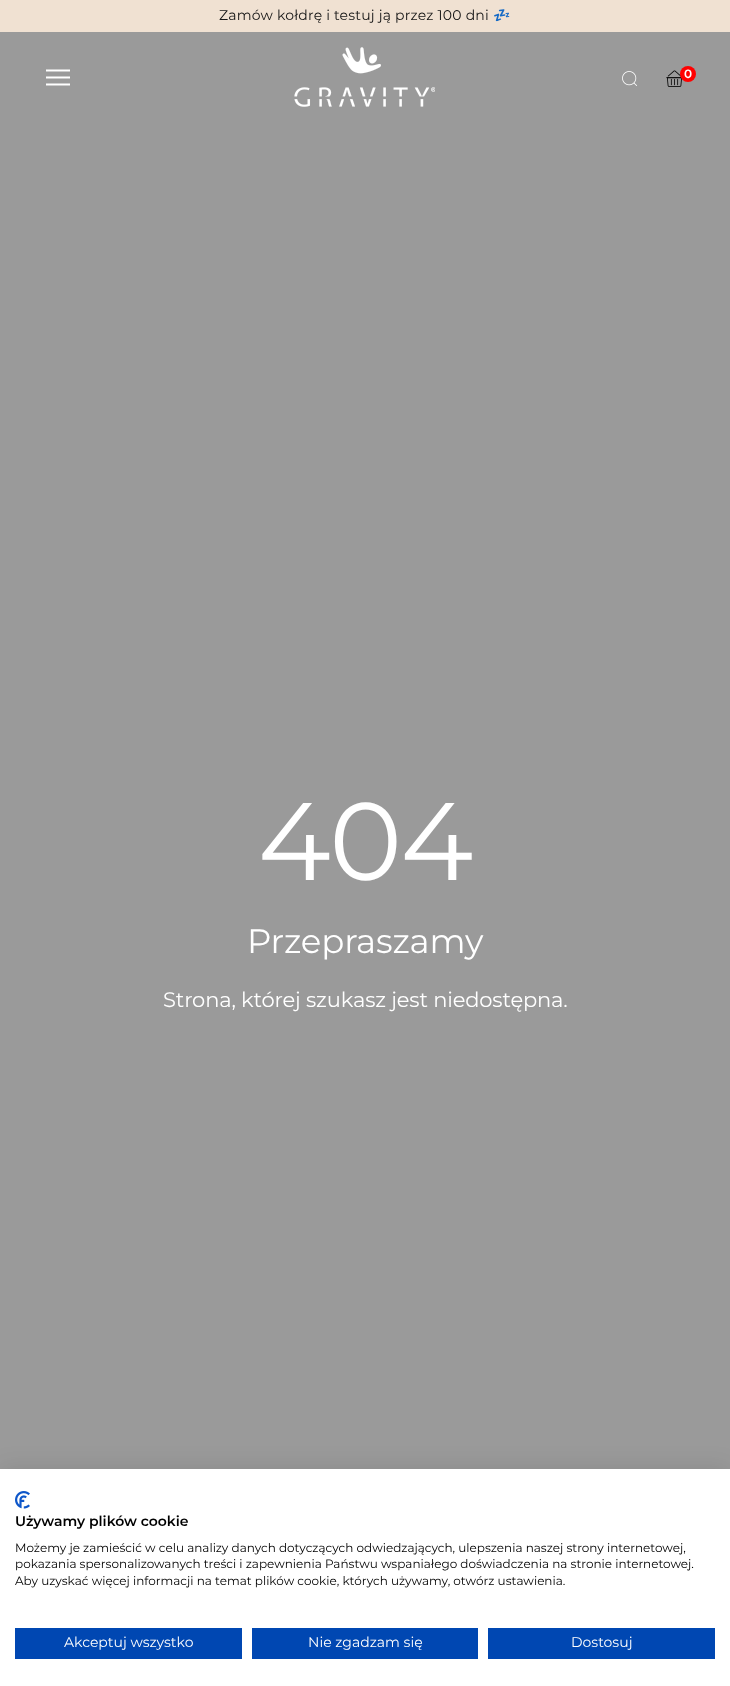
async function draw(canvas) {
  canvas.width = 730
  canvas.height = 1686
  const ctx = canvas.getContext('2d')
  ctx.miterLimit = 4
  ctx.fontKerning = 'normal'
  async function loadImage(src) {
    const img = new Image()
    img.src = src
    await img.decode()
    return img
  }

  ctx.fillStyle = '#9a9a9a'
  ctx.fillRect(0, 0, 730, 1686)
  ctx.fillStyle = '#f0e1d2'
  ctx.fillRect(0, 0, 730, 32)
  ctx.letterSpacing = '0.2px'
  ctx.font = '14px Montserrat'
  ctx.fillStyle = '#141414'
  ctx.fillText('Zamów kołdrę i testuj ją przez 100 dni', 219, 20)
  ctx.font = '14px Noto Color Emoji'
  ctx.fillText('💤', 493, 20)
  ctx.drawImage(await loadImage('image0.png'), 46, 69, 24, 17)
  ctx.drawImage(await loadImage('image1.png'), 294, 47, 141, 60)
  ctx.drawImage(await loadImage('image2.png'), 622, 71, 15, 15)
  ctx.drawImage(await loadImage('image3.png'), 666, 70, 16, 17)
  ctx.fillStyle = '#f00'
  ctx.beginPath()
  ctx.arc(688, 74, 8, 0, 2 * Math.PI)
  ctx.fill()
  ctx.letterSpacing = '-0.15px'
  ctx.font = '600 12px Montserrat'
  ctx.fillStyle = '#fff'
  ctx.fillText('0', 684, 78)
  ctx.letterSpacing = '-1.5px'
  ctx.font = '110px Montserrat'
  ctx.fillText('404', 258, 880)
  ctx.letterSpacing = '-0.15px'
  ctx.font = '34px Montserrat'
  ctx.fillText('Przepraszamy', 247, 953)
  ctx.font = '21px Montserrat'
  ctx.fillText('Strona, której szukasz jest niedostępna.', 163, 1007)
  ctx.fillStyle = '#0000001a'
  ctx.filter = 'blur(12px)'
  ctx.beginPath()
  ctx.rect(0, 1469, 730, 217)
  ctx.fill()
  ctx.filter = 'none'
  ctx.fillStyle = '#fff'
  ctx.fillRect(0, 1469, 730, 217)
  ctx.drawImage(await loadImage('image4.png'), 15, 1491, 15, 18)
  ctx.letterSpacing = '0px'
  ctx.font = '600 14px Montserrat'
  ctx.fillStyle = '#000'
  ctx.fillText('Używamy plików cookie', 15, 1526)
  ctx.font = '12px Montserrat'
  ctx.fillText('Możemy je zamieścić w celu analizy danych dotyczących odwiedzających, ulepszenia naszej strony internetowej,', 15, 1552)
  ctx.fillText('pokazania spersonalizowanych treści i zapewnienia Państwu wspaniałego doświadczenia na stronie internetowej.', 15, 1568)
  ctx.fillText('Aby uzyskać więcej informacji na temat plików cookie, których używamy, otwórz ustawienia.', 15, 1585)
  ctx.fillStyle = '#0047b2'
  ctx.fillRect(15, 1628, 227, 31)
  ctx.font = '14px Montserrat'
  ctx.fillStyle = '#fff'
  ctx.fillText('Akceptuj wszystko', 64, 1647)
  ctx.fillStyle = '#0047b2'
  ctx.fillRect(252, 1628, 226, 31)
  ctx.fillStyle = '#fff'
  ctx.fillText('Nie zgadzam się', 308, 1647)
  ctx.fillStyle = '#0047b2'
  ctx.fillRect(488, 1628, 227, 31)
  ctx.fillStyle = '#fff'
  ctx.fillText('Dostosuj', 571, 1647)
}

draw(document.querySelector('canvas'))
